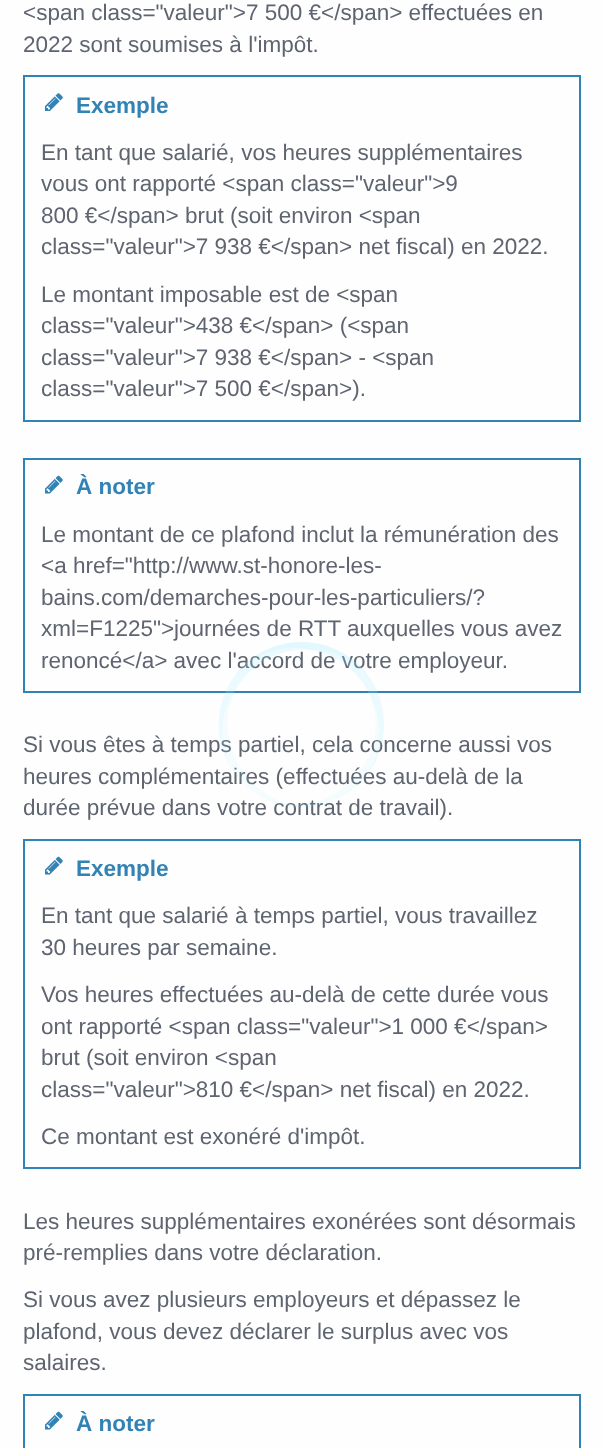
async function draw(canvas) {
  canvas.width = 602
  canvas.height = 1448
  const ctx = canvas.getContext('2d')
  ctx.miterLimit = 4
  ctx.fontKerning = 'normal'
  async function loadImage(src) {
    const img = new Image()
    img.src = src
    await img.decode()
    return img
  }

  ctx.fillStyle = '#fefefe'
  ctx.fillRect(0, 0, 602, 1448)
  ctx.font = '22.5px Liberation Sans'
  ctx.fillStyle = '#5e6470'
  ctx.fillText('<span class="valeur">7 500 €<\/span> effectuées en', 23, 20)
  ctx.fillText('2022 sont soumises à l\'impôt.', 23, 52)
  ctx.strokeStyle = '#3182b5'
  ctx.lineWidth = 2
  ctx.strokeRect(24, 76, 556, 345)
  ctx.drawImage(await loadImage('image0.png'), 45, 93, 18, 18)
  ctx.font = 'bold 22.5px Liberation Sans'
  ctx.fillStyle = '#3182b5'
  ctx.fillText('Exemple', 76, 113)
  ctx.font = '22.5px Liberation Sans'
  ctx.fillStyle = '#5e6470'
  ctx.fillText('En tant que salarié, vos heures supplémentaires', 41, 160)
  ctx.fillText('vous ont rapporté <span class="valeur">9', 41, 191)
  ctx.fillText('800 €<\/span> brut (soit environ <span', 41, 223)
  ctx.fillText('class="valeur">7 938 €<\/span> net fiscal) en 2022.', 41, 254)
  ctx.fillText('Le montant imposable est de <span', 41, 302)
  ctx.fillText('class="valeur">438 €<\/span> (<span', 41, 333)
  ctx.fillText('class="valeur">7 938 €<\/span> - <span', 41, 365)
  ctx.fillText('class="valeur">7 500 €<\/span>).', 41, 396)
  ctx.strokeRect(24, 459, 556, 233)
  ctx.drawImage(await loadImage('image1.png'), 45, 475, 18, 19)
  ctx.font = 'bold 22.5px Liberation Sans'
  ctx.fillStyle = '#3182b5'
  ctx.fillText('À noter', 76, 494)
  ctx.font = '22.5px Liberation Sans'
  ctx.fillStyle = '#5e6470'
  ctx.fillText('Le montant de ce plafond inclut la rémunération des', 41, 542)
  ctx.fillText('<a href="http://www.st-honore-les-', 41, 573)
  ctx.fillText('bains.com/demarches-pour-les-particuliers/?', 41, 605)
  ctx.fillText('xml=F1225">journées de RTT auxquelles vous avez', 41, 636)
  ctx.fillText('renoncé<\/a> avec l\'accord de votre employeur.', 41, 668)
  ctx.fillText('Si vous êtes à temps partiel, cela concerne aussi vos', 23, 752)
  ctx.fillText('heures complémentaires (effectuées au-delà de la', 23, 784)
  ctx.fillText('durée prévue dans votre contrat de travail).', 23, 815)
  ctx.strokeRect(24, 840, 556, 328)
  ctx.drawImage(await loadImage('image1.png'), 45, 856, 18, 19)
  ctx.font = 'bold 22.5px Liberation Sans'
  ctx.fillStyle = '#3182b5'
  ctx.fillText('Exemple', 76, 876)
  ctx.font = '22.5px Liberation Sans'
  ctx.fillStyle = '#5e6470'
  ctx.fillText('En tant que salarié à temps partiel, vous travaillez', 41, 923)
  ctx.fillText('30 heures par semaine.', 41, 955)
  ctx.fillText('Vos heures effectuées au-delà de cette durée vous', 41, 1002)
  ctx.fillText('ont rapporté <span class="valeur">1 000 €<\/span>', 41, 1034)
  ctx.fillText('brut (soit environ <span', 41, 1065)
  ctx.fillText('class="valeur">810 €<\/span> net fiscal) en 2022.', 41, 1097)
  ctx.fillText('Ce montant est exonéré d\'impôt.', 41, 1144)
  ctx.fillText('Les heures supplémentaires exonérées sont désormais', 23, 1229)
  ctx.fillText('pré-remplies dans votre déclaration.', 23, 1260)
  ctx.fillText('Si vous avez plusieurs employeurs et dépassez le', 23, 1307)
  ctx.fillText('plafond, vous devez déclarer le surplus avec vos', 23, 1339)
  ctx.fillText('salaires.', 23, 1370)
  ctx.strokeRect(24, 1395, 556, 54)
  ctx.drawImage(await loadImage('image1.png'), 45, 1411, 18, 19)
  ctx.font = 'bold 22.5px Liberation Sans'
  ctx.fillStyle = '#3182b5'
  ctx.fillText('À noter', 76, 1431)
  ctx.fillStyle = '#a8eaff1c'
  ctx.beginPath()
  ctx.moveTo(379, 696)
  ctx.bezierCurveTo(395, 739, 373, 786, 330, 802)
  ctx.bezierCurveTo(287, 818, 240, 796, 224, 753)
  ctx.bezierCurveTo(208, 710, 230, 663, 273, 647)
  ctx.bezierCurveTo(316, 631, 363, 653, 379, 696)
  ctx.closePath()
  ctx.moveTo(379, 696)
  ctx.bezierCurveTo(395, 739, 373, 786, 330, 802)
  ctx.bezierCurveTo(291, 816, 247, 793, 232, 750)
  ctx.bezierCurveTo(218, 711, 238, 669, 276, 655)
  ctx.bezierCurveTo(319, 639, 365, 658, 379, 696)
  ctx.closePath()
  ctx.fill('evenodd')
  ctx.beginPath()
  ctx.moveTo(355, 788)
  ctx.bezierCurveTo(320, 817, 268, 812, 238, 778)
  ctx.bezierCurveTo(209, 743, 214, 691, 248, 661)
  ctx.bezierCurveTo(283, 632, 335, 637, 365, 671)
  ctx.bezierCurveTo(394, 706, 389, 758, 355, 788)
  ctx.closePath()
  ctx.moveTo(355, 788)
  ctx.bezierCurveTo(320, 817, 268, 812, 238, 778)
  ctx.bezierCurveTo(212, 746, 219, 697, 254, 668)
  ctx.bezierCurveTo(285, 641, 332, 645, 358, 677)
  ctx.bezierCurveTo(388, 712, 386, 761, 355, 788)
  ctx.closePath()
  ctx.fill('evenodd')
  ctx.beginPath()
  ctx.moveTo(260, 796)
  ctx.bezierCurveTo(221, 773, 207, 723, 230, 683)
  ctx.bezierCurveTo(253, 644, 303, 630, 343, 653)
  ctx.bezierCurveTo(382, 676, 396, 726, 373, 766)
  ctx.bezierCurveTo(350, 805, 300, 819, 260, 796)
  ctx.closePath()
  ctx.moveTo(260, 796)
  ctx.bezierCurveTo(221, 773, 207, 723, 230, 683)
  ctx.bezierCurveTo(251, 648, 299, 637, 339, 660)
  ctx.bezierCurveTo(374, 681, 386, 726, 366, 762)
  ctx.bezierCurveTo(343, 801, 296, 816, 260, 796)
  ctx.closePath()
  ctx.fill('evenodd')
}

draw(document.querySelector('canvas'))
